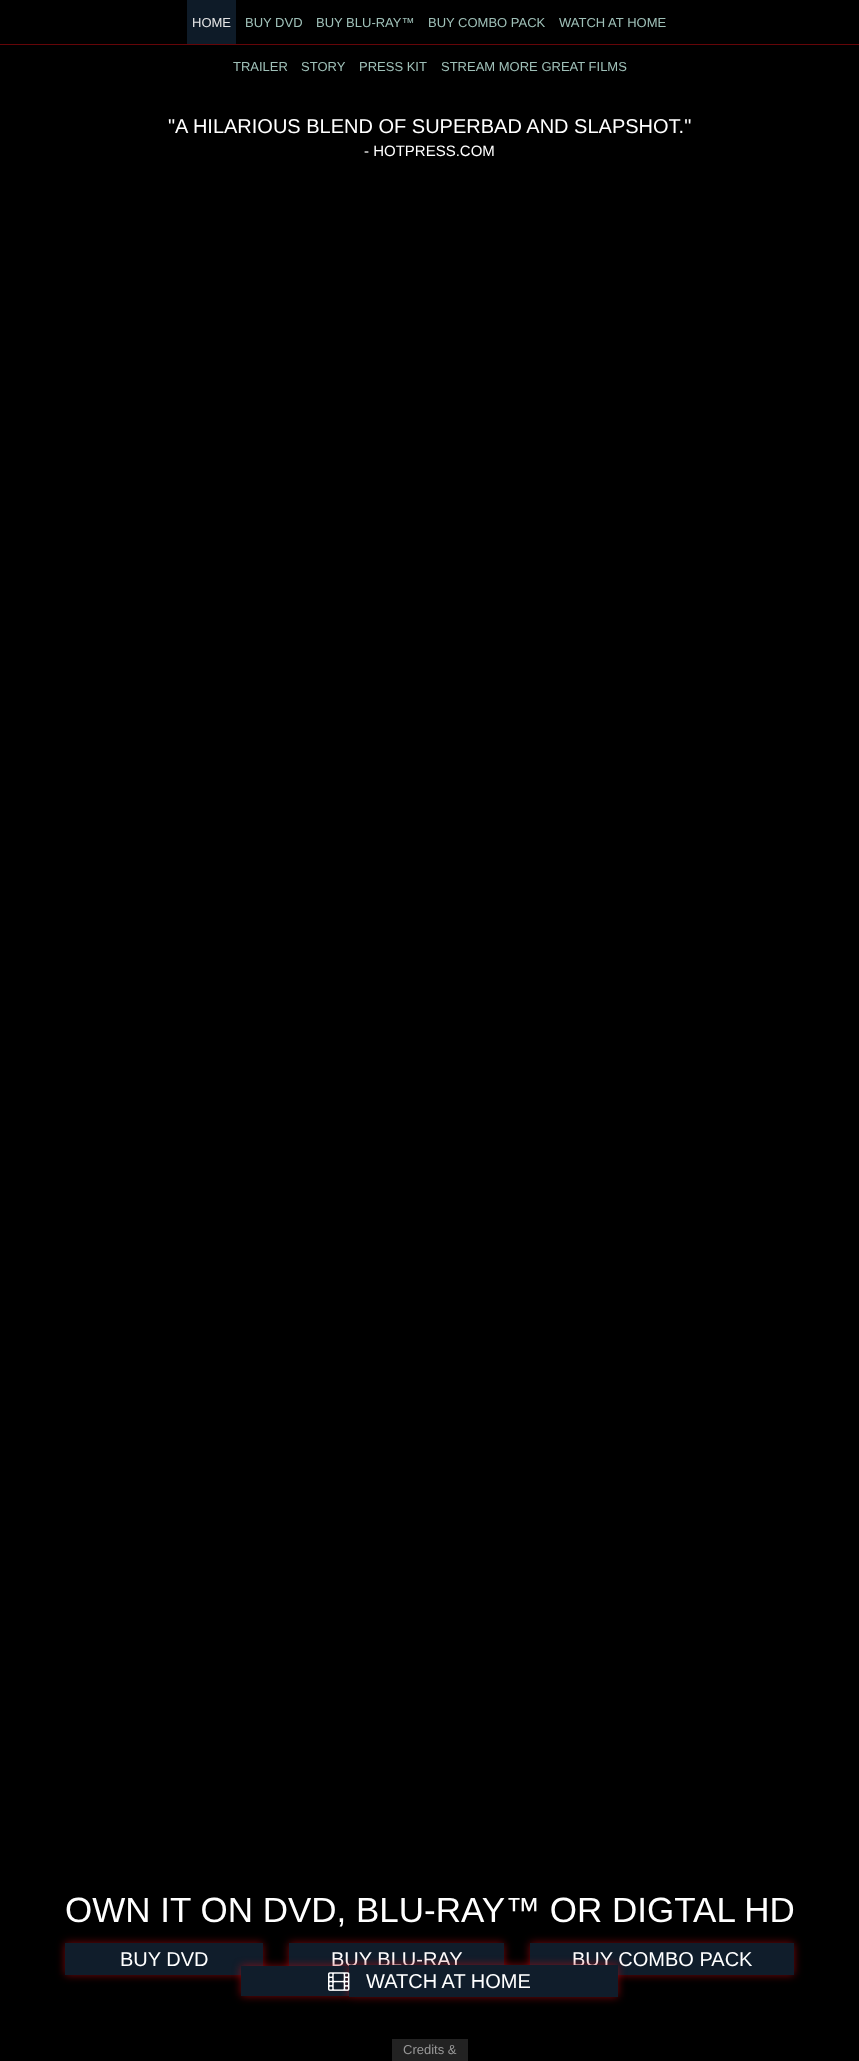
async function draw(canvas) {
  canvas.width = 859
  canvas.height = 2061
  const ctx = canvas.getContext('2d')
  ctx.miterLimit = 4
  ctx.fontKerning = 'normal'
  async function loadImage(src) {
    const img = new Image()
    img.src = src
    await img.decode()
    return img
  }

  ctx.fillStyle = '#000'
  ctx.fillRect(0, 0, 859, 2061)
  ctx.fillStyle = '#650508'
  ctx.fillRect(0, 44, 859, 1)
  ctx.fillStyle = '#0e1b28'
  ctx.fillRect(187, 0, 49, 44)
  ctx.font = '13px Liberation Sans'
  ctx.fillStyle = '#e6e6e6'
  ctx.fillText('HOME', 192, 27)
  ctx.fillStyle = '#9fc0b8'
  ctx.fillText('BUY DVD', 245, 27)
  ctx.fillText('BUY BLU-RAY™', 316, 27)
  ctx.fillText('BUY COMBO PACK', 428, 27)
  ctx.fillText('WATCH AT HOME', 559, 27)
  ctx.fillText('TRAILER', 233, 71)
  ctx.fillText('STORY', 301, 71)
  ctx.fillText('PRESS KIT', 359, 71)
  ctx.fillText('STREAM MORE GREAT FILMS', 441, 71)
  ctx.font = '20px Liberation Sans'
  ctx.fillStyle = '#fff'
  ctx.fillText('"A HILARIOUS BLEND OF SUPERBAD AND SLAPSHOT."', 168, 133)
  ctx.font = '15px Liberation Sans'
  ctx.fillText('- HOTPRESS.COM', 364, 156)
  ctx.font = '35px Liberation Sans'
  ctx.fillText('OWN IT ON DVD, BLU-RAY™ OR DIGTAL HD', 65, 1922)
  ctx.fillStyle = '#c90a1099'
  ctx.filter = 'blur(4px)'
  ctx.beginPath()
  ctx.rect(65, 1943, 198, 32)
  ctx.fill()
  ctx.filter = 'none'
  ctx.fillStyle = '#101d2b'
  ctx.fillRect(65, 1943, 198, 32)
  ctx.font = '20px Liberation Sans'
  ctx.fillStyle = '#fff'
  ctx.fillText('BUY DVD', 120, 1966)
  ctx.fillStyle = '#c90a1099'
  ctx.filter = 'blur(4px)'
  ctx.beginPath()
  ctx.rect(289, 1943, 215, 32)
  ctx.fill()
  ctx.filter = 'none'
  ctx.fillStyle = '#101d2b'
  ctx.fillRect(289, 1943, 215, 23)
  ctx.fillStyle = '#fff'
  ctx.fillText('BUY BLU-RAY', 331, 1966)
  ctx.fillStyle = '#c90a1099'
  ctx.filter = 'blur(4px)'
  ctx.beginPath()
  ctx.rect(530, 1943, 264, 32)
  ctx.fill()
  ctx.filter = 'none'
  ctx.fillStyle = '#101d2b'
  ctx.fillRect(530, 1943, 264, 32)
  ctx.fillStyle = '#fff'
  ctx.fillText('BUY COMBO PACK', 572, 1966)
  ctx.fillStyle = '#c90a1099'
  ctx.filter = 'blur(4px)'
  ctx.beginPath()
  ctx.rect(241, 1966, 108, 30)
  ctx.fill()
  ctx.filter = 'none'
  ctx.fillStyle = '#101d2b'
  ctx.fillRect(241, 1966, 108, 30)
  ctx.fillStyle = '#c90a1099'
  ctx.filter = 'blur(4px)'
  ctx.beginPath()
  ctx.rect(349, 1965, 269, 32)
  ctx.fill()
  ctx.filter = 'none'
  ctx.fillStyle = '#101d2b'
  ctx.fillRect(349, 1965, 269, 32)
  ctx.drawImage(await loadImage('image0.png'), 328, 1972, 22, 19)
  ctx.fillStyle = '#fff'
  ctx.fillText('WATCH AT HOME', 366, 1988)
  ctx.fillStyle = '#222'
  ctx.fillRect(392, 2039, 76, 22)
  ctx.font = '13px Liberation Sans'
  ctx.fillStyle = '#999'
  ctx.fillText('Credits &', 403, 2054)
}

draw(document.querySelector('canvas'))
